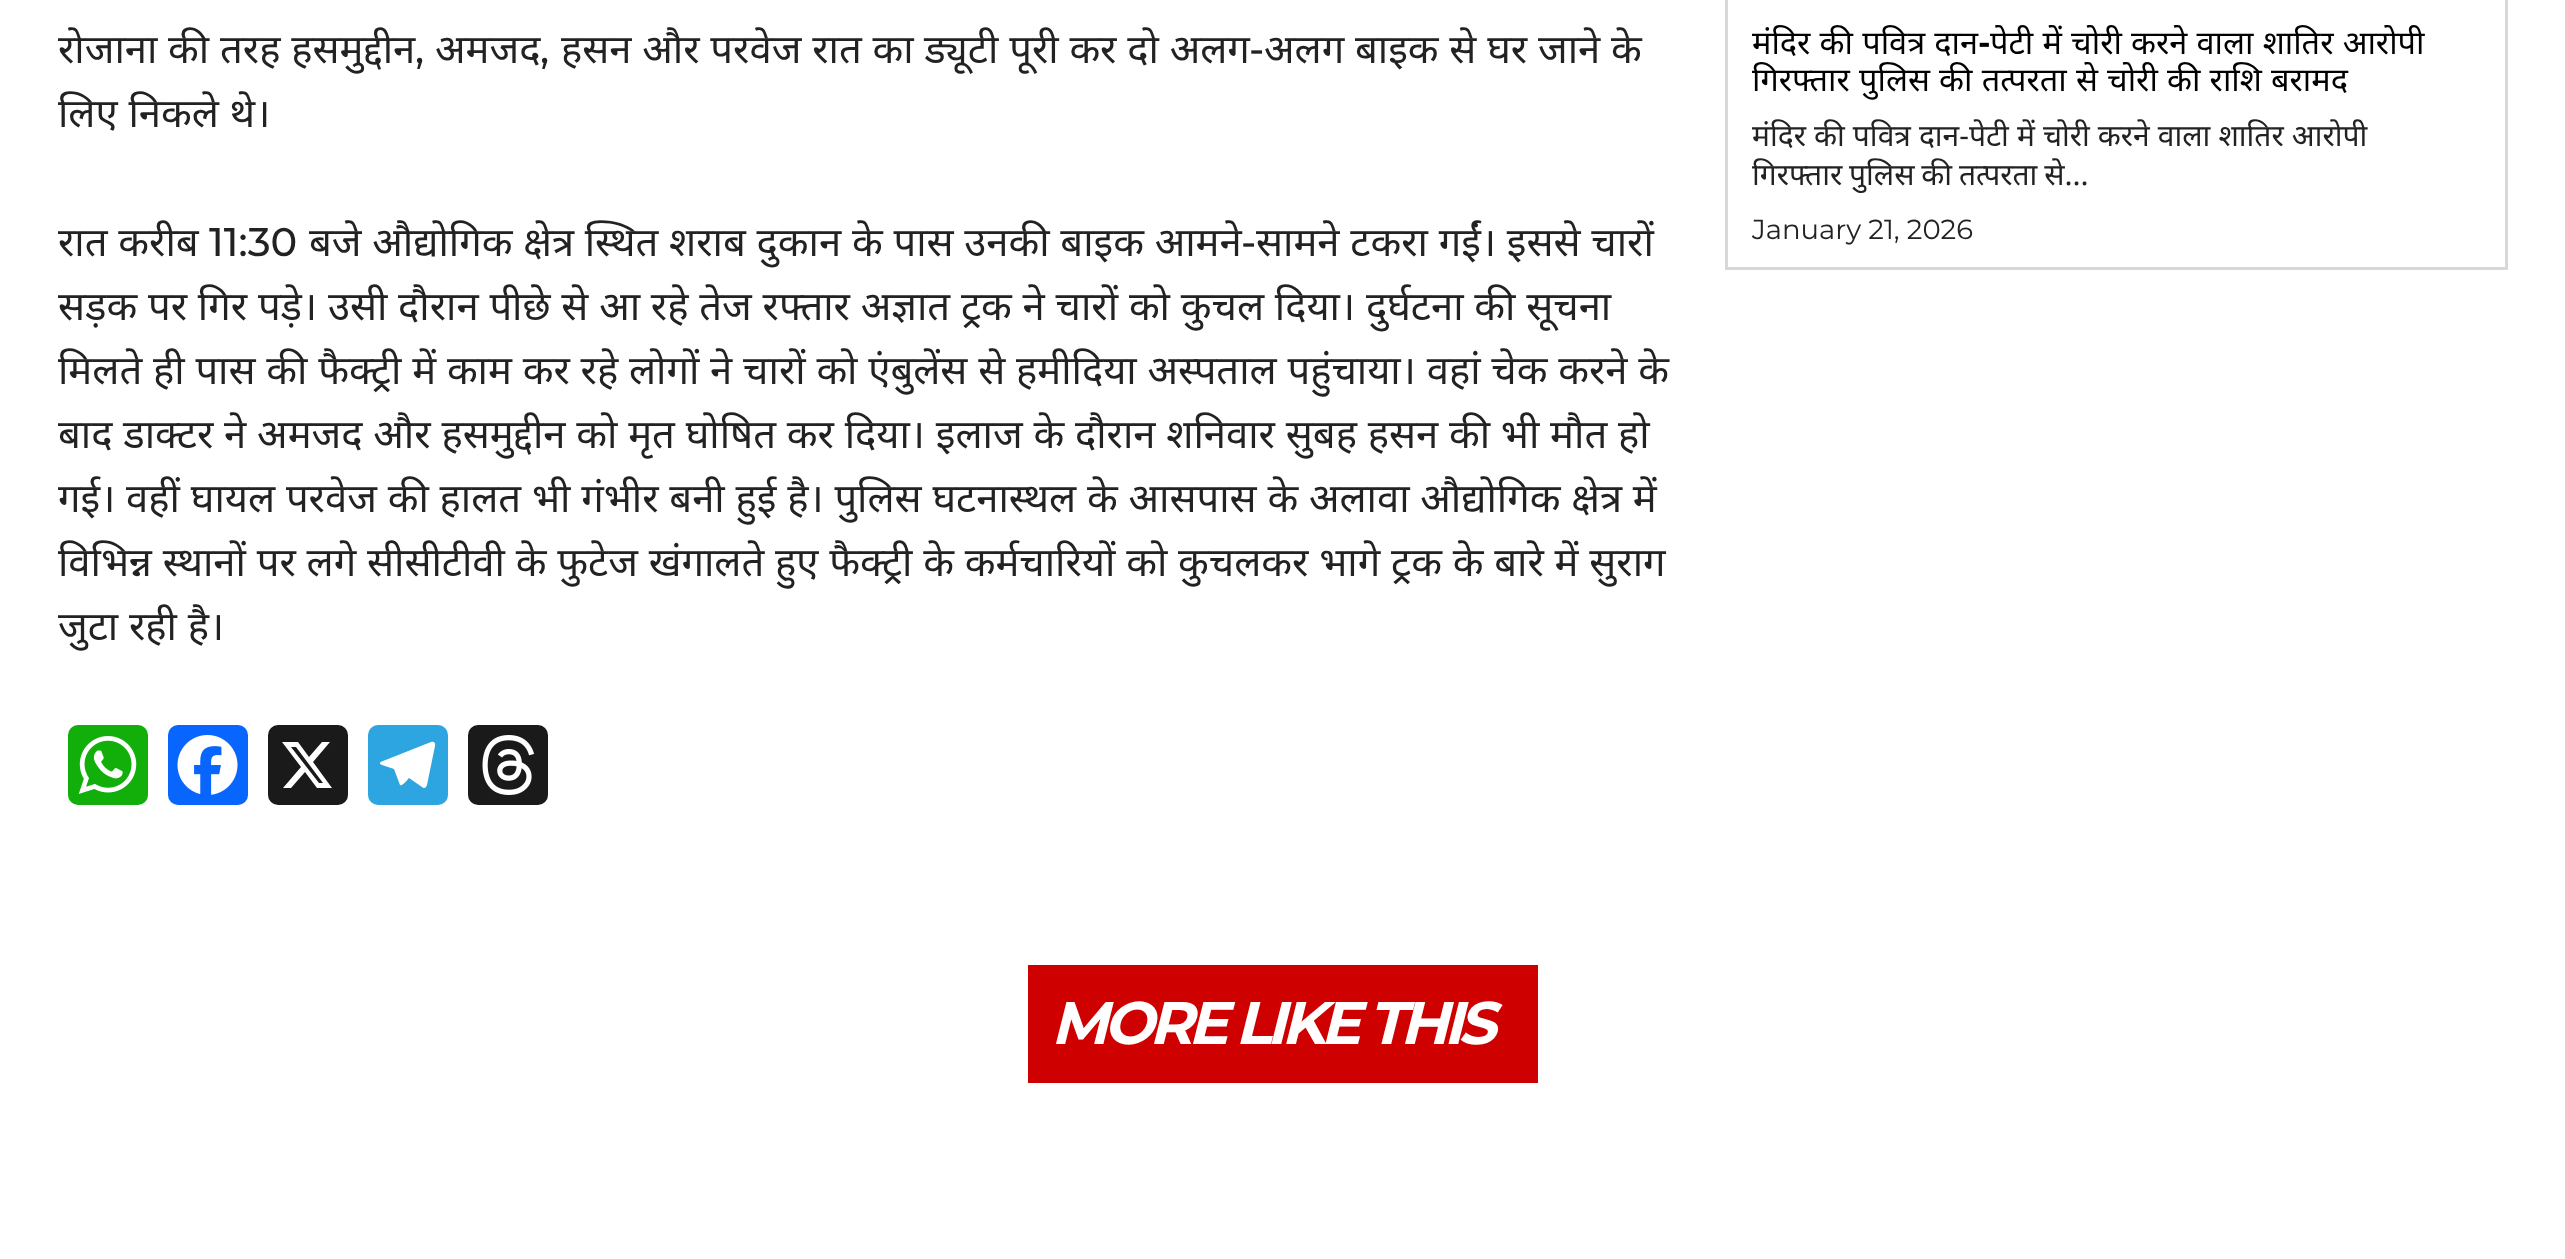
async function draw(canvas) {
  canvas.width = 2565
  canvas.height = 1259
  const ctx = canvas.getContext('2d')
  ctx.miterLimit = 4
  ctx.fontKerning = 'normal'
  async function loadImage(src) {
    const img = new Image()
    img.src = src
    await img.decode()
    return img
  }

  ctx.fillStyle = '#fff'
  ctx.fillRect(0, 0, 2565, 1259)
  ctx.wordSpacing = '0.4px'
  ctx.font = '40px Noto Sans'
  ctx.fillStyle = '#222'
  ctx.fillText('रोजाना की तरह हसमुद्दीन', 58, 63)
  ctx.wordSpacing = '0px'
  ctx.fillText('अमजद', 435, 63)
  ctx.wordSpacing = '0.4px'
  ctx.fillText('हसन और परवेज रात का ड्यूटी पूरी कर दो अलग', 561, 63)
  ctx.wordSpacing = '0px'
  ctx.font = '500 40px Montserrat'
  ctx.fillText('-', 1249, 63)
  ctx.wordSpacing = '0.4px'
  ctx.font = '40px Noto Sans'
  ctx.fillText('अलग बाइक से घर जाने के', 1264, 63)
  ctx.wordSpacing = '0px'
  ctx.font = '500 40px Montserrat'
  ctx.fillText(',', 415, 63)
  ctx.fillText(',', 540, 63)
  ctx.wordSpacing = '0.4px'
  ctx.font = '40px Noto Sans'
  ctx.fillText('लिए निकले थे।', 58, 127)
  ctx.fillText('रात करीब', 58, 256)
  ctx.wordSpacing = '0px'
  ctx.font = '500 40px Montserrat'
  ctx.fillText('11:30', 209, 256)
  ctx.wordSpacing = '0.4px'
  ctx.font = '40px Noto Sans'
  ctx.fillText('बजे औद्योगिक क्षेत्र स्थित शराब दुकान के पास उनकी बाइक आमने', 309, 256)
  ctx.wordSpacing = '0px'
  ctx.font = '500 40px Montserrat'
  ctx.fillText('-', 1241, 256)
  ctx.wordSpacing = '0.4px'
  ctx.font = '40px Noto Sans'
  ctx.fillText('सामने टकरा गईं। इससे चारों', 1256, 256)
  ctx.fillText('सड़क पर गिर पड़े। उसी दौरान पीछे से आ रहे तेज रफ्तार अज्ञात ट्रक ने चारों को कुचल दिया। दुर्घटना की सूचना', 58, 320)
  ctx.fillText('मिलते ही पास की फैक्ट्री में काम कर रहे लोगों ने चारों को एंबुलेंस से हमीदिया अस्पताल पहुंचाया। वहां चेक करने के', 58, 384)
  ctx.fillText('बाद डाक्टर ने अमजद और हसमुद्दीन को मृत घोषित कर दिया। इलाज के दौरान शनिवार सुबह हसन की भी मौत हो', 58, 448)
  ctx.fillText('गई। वहीं घायल परवेज की हालत भी गंभीर बनी हुई है। पुलिस घटनास्थल के आसपास के अलावा औद्योगिक क्षेत्र में', 58, 512)
  ctx.fillText('विभिन्न स्थानों पर लगे सीसीटीवी के फुटेज खंगालते हुए फैक्ट्री के कर्मचारियों को कुचलकर भागे ट्रक के बारे में सुराग', 58, 576)
  ctx.fillText('जुटा रही है।', 58, 640)
  ctx.fillStyle = '#12af0a'
  ctx.beginPath()
  ctx.roundRect(68, 725, 80, 80, 10)
  ctx.fill()
  ctx.drawImage(await loadImage('image0.png'), 78, 736, 59, 58)
  ctx.fillStyle = '#0866ff'
  ctx.beginPath()
  ctx.roundRect(168, 725, 80, 80, 10)
  ctx.fill()
  ctx.drawImage(await loadImage('image1.png'), 177, 735, 61, 60)
  ctx.fillStyle = '#1a1a1a'
  ctx.beginPath()
  ctx.roundRect(268, 725, 80, 80, 10)
  ctx.fill()
  ctx.fillStyle = '#fff'
  ctx.beginPath()
  ctx.moveTo(322, 742)
  ctx.lineTo(330, 742)
  ctx.lineTo(313, 762)
  ctx.lineTo(332, 788)
  ctx.lineTo(317, 788)
  ctx.lineTo(305, 772)
  ctx.lineTo(291, 788)
  ctx.lineTo(283, 788)
  ctx.lineTo(301, 767)
  ctx.lineTo(282, 742)
  ctx.lineTo(298, 742)
  ctx.lineTo(309, 757)
  ctx.closePath()
  ctx.moveTo(319, 783)
  ctx.lineTo(323, 783)
  ctx.lineTo(296, 747)
  ctx.lineTo(291, 747)
  ctx.closePath()
  ctx.fill()
  ctx.fillStyle = '#2ca5e0'
  ctx.beginPath()
  ctx.roundRect(368, 725, 80, 80, 10)
  ctx.fill()
  ctx.fillStyle = '#fff'
  ctx.beginPath()
  ctx.moveTo(431, 742)
  ctx.lineTo(383, 761)
  ctx.bezierCurveTo(379, 762, 379, 764, 382, 765)
  ctx.lineTo(394, 769)
  ctx.lineTo(400, 785)
  ctx.bezierCurveTo(402, 787, 408, 779, 409, 778)
  ctx.lineTo(422, 787)
  ctx.bezierCurveTo(424, 789, 426, 788, 427, 785)
  ctx.lineTo(435, 746)
  ctx.bezierCurveTo(436, 743, 434, 741, 431, 742)
  ctx.closePath()
  ctx.fill()
  ctx.fillStyle = '#1a1a1a'
  ctx.beginPath()
  ctx.roundRect(468, 725, 80, 80, 10)
  ctx.fill()
  ctx.drawImage(await loadImage('image2.png'), 482, 735, 53, 60)
  ctx.strokeStyle = '#d8d8d8'
  ctx.lineWidth = 3
  ctx.strokeRect(1726.5, -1.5, 780, 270)
  ctx.wordSpacing = '0.75px'
  ctx.font = '32.5px Noto Sans'
  ctx.fillStyle = '#000'
  ctx.fillText('मंदिर की पवित्र दान', 1752, 54)
  ctx.wordSpacing = '0px'
  ctx.font = 'bold 32.5px Montserrat'
  ctx.fillText('-', 1978, 54)
  ctx.wordSpacing = '0.75px'
  ctx.font = '32.5px Noto Sans'
  ctx.fillText('पेटी में चोरी करने वाला शातिर आरोपी', 1990, 54)
  ctx.wordSpacing = '0px'
  ctx.fillText('गिरफ्तार', 1752, 91)
  ctx.wordSpacing = '0.75px'
  ctx.fillText('पुलिस की तत्परता से चोरी की राशि बरामद', 1859, 91)
  ctx.wordSpacing = '0.25px'
  ctx.font = '30px Noto Sans'
  ctx.fillStyle = '#222'
  ctx.fillText('मंदिर की पवित्र दान-पेटी में चोरी करने वाला शातिर आरोपी', 1752, 146)
  ctx.wordSpacing = '-1px'
  ctx.fillText('गिरफ्तार पुलिस की तत्परता से...', 1752, 185)
  ctx.wordSpacing = '0px'
  ctx.font = '27.5px Montserrat'
  ctx.fillText('January 21, 2026', 1752, 239)
  ctx.fillStyle = '#ce0000'
  ctx.fillRect(1028, 965, 510, 118)
  ctx.letterSpacing = '-5px'
  ctx.font = 'italic bold 60px Montserrat'
  ctx.fillStyle = '#fff'
  ctx.fillText('MORE LIKE THIS', 1051, 1044)
}

draw(document.querySelector('canvas'))
